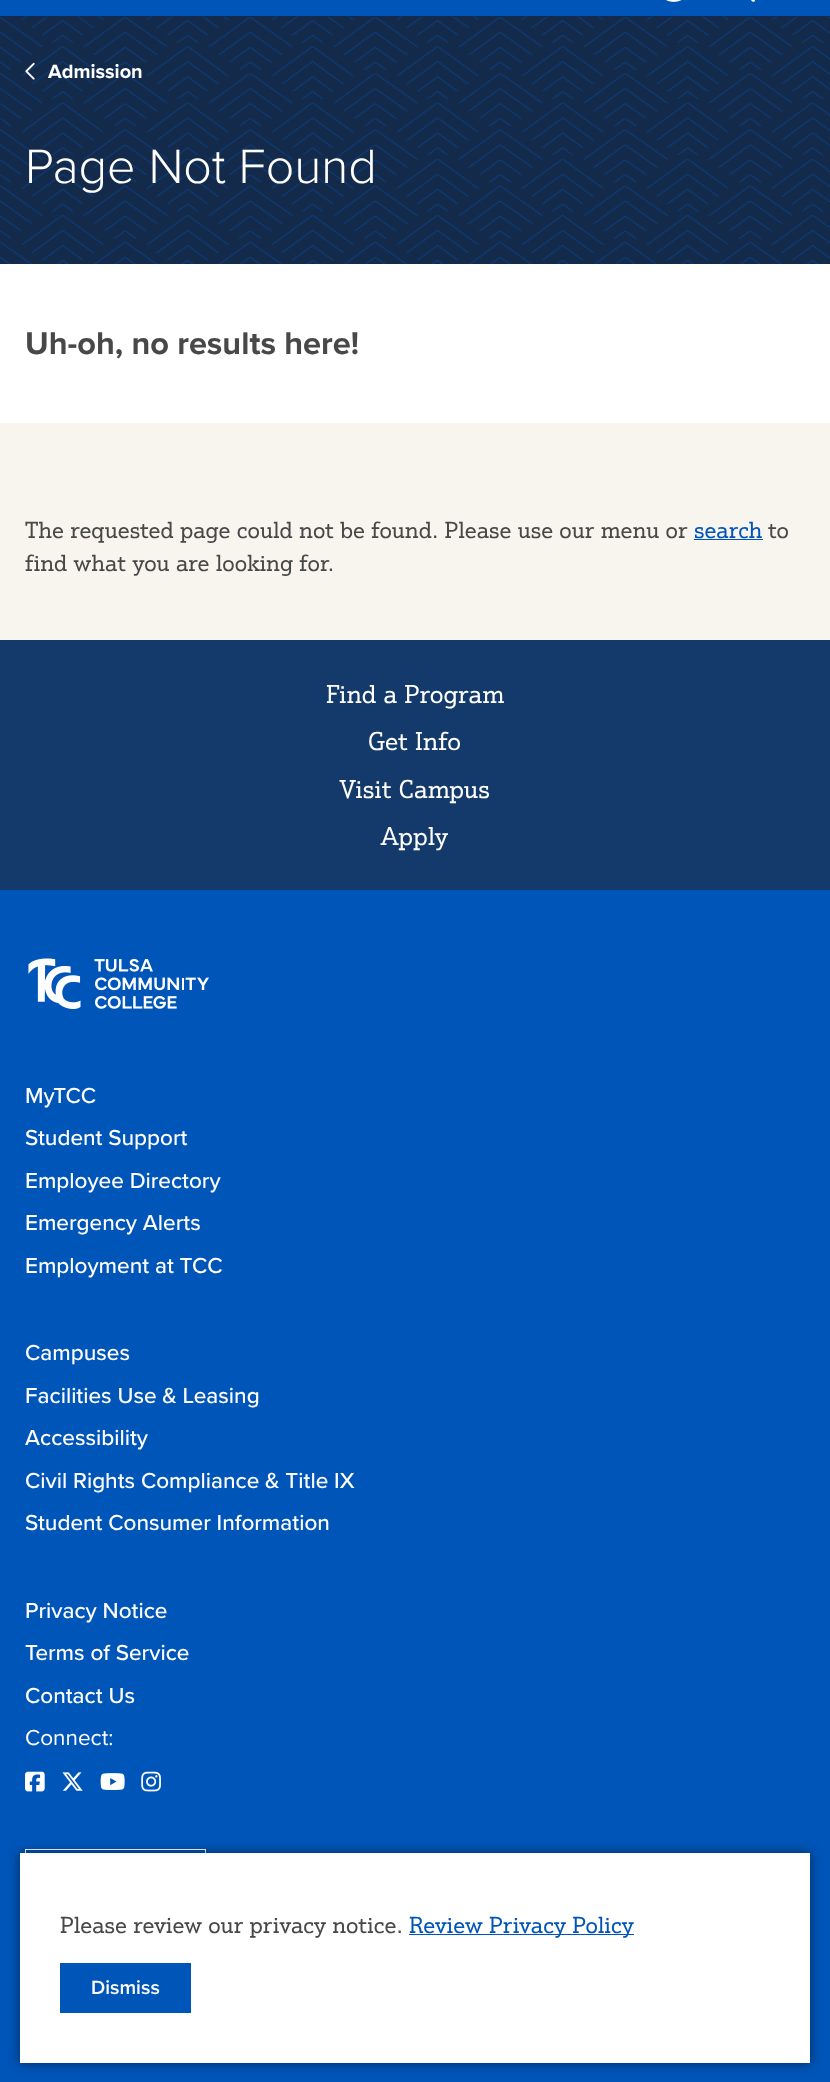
async function draw(canvas) {
  canvas.width = 830
  canvas.height = 2082
  const ctx = canvas.getContext('2d')
  ctx.miterLimit = 4
  ctx.fontKerning = 'normal'
  async function loadImage(src) {
    const img = new Image()
    img.src = src
    await img.decode()
    return img
  }

  ctx.fillStyle = '#fff'
  ctx.fillRect(0, 0, 830, 2082)
  ctx.fillStyle = '#0055b8'
  ctx.fillRect(0, 0, 830, 16)
  ctx.drawImage(await loadImage('image0.png'), 666, 0, 16, 2)
  ctx.drawImage(await loadImage('image1.png'), 751, 0, 4, 2)
  ctx.fillStyle = '#142a4a'
  ctx.fillRect(0, 16, 830, 248)
  ctx.drawImage(await loadImage('image2.png'), 0, 16, 830, 248)
  ctx.drawImage(await loadImage('image3.png'), 25, 62, 10, 18)
  ctx.font = 'bold 20px Proxima Nova'
  ctx.fillStyle = '#fff'
  ctx.fillText('Admission', 48, 78)
  ctx.font = '300 50px Proxima Nova'
  ctx.fillText('Page Not Found', 25, 183)
  ctx.font = 'bold 32.5px Proxima Nova'
  ctx.fillStyle = '#484849'
  ctx.fillText('Uh-oh, no results here!', 25, 354)
  ctx.fillStyle = '#f8f5ef'
  ctx.fillRect(0, 423, 830, 217)
  ctx.font = '22.5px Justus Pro'
  ctx.fillStyle = '#484849'
  ctx.fillText('The requested page could not be found. Please use our menu or', 25, 538)
  ctx.fillStyle = '#0055b8'
  ctx.fillText('search', 694, 538)
  ctx.fillRect(694, 539, 69, 1)
  ctx.fillStyle = '#484849'
  ctx.fillText('to', 768, 538)
  ctx.fillText('find what you are looking for.', 25, 571)
  ctx.fillStyle = '#133a6a'
  ctx.fillRect(0, 640, 830, 250)
  ctx.font = '25px Justus Pro'
  ctx.fillStyle = '#fff'
  ctx.fillText('Find a Program', 326, 703)
  ctx.fillText('Get Info', 368, 750)
  ctx.fillText('Visit Campus', 340, 798)
  ctx.fillText('Apply', 381, 845)
  ctx.fillStyle = '#0055b8'
  ctx.fillRect(0, 890, 830, 1192)
  ctx.drawImage(await loadImage('image4.png'), 28, 958, 181, 51)
  ctx.font = '500 22.5px Proxima Nova'
  ctx.fillStyle = '#fff'
  ctx.fillText('MyTCC', 25, 1103)
  ctx.fillText('Student Support', 25, 1145)
  ctx.fillText('Employee Directory', 25, 1188)
  ctx.fillText('Emergency Alerts', 25, 1230)
  ctx.fillText('Employment at TCC', 25, 1273)
  ctx.fillText('Campuses', 25, 1360)
  ctx.fillText('Facilities Use & Leasing', 25, 1403)
  ctx.fillText('Accessibility', 25, 1445)
  ctx.fillText('Civil Rights Compliance & Title IX', 25, 1488)
  ctx.fillText('Student Consumer Information', 25, 1530)
  ctx.fillText('Privacy Notice', 25, 1618)
  ctx.fillText('Terms of Service', 25, 1660)
  ctx.fillText('Contact Us', 25, 1703)
  ctx.font = '22.5px Proxima Nova'
  ctx.fillText('Connect:', 25, 1745)
  ctx.drawImage(await loadImage('image5.png'), 25, 1771, 20, 21)
  ctx.drawImage(await loadImage('image6.png'), 62, 1772, 21, 19)
  ctx.drawImage(await loadImage('image7.png'), 100, 1773, 25, 17)
  ctx.drawImage(await loadImage('image8.png'), 141, 1771, 20, 21)
  ctx.strokeStyle = '#fff'
  ctx.strokeRect(25.5, 1849.5, 180, 61)
  ctx.fillStyle = '#00000080'
  ctx.filter = 'blur(6px)'
  ctx.beginPath()
  ctx.rect(20, 1853, 790, 210)
  ctx.fill()
  ctx.filter = 'none'
  ctx.fillStyle = '#fff'
  ctx.fillRect(20, 1853, 790, 210)
  ctx.font = '22.5px Justus Pro'
  ctx.fillStyle = '#484849'
  ctx.fillText('Please review our privacy notice.', 60, 1933)
  ctx.fillStyle = '#0055b8'
  ctx.fillRect(409, 1934, 225, 1)
  ctx.fillText('Review Privacy Policy', 409, 1933)
  ctx.fillRect(60, 1963, 131, 50)
  ctx.font = '600 20px Proxima Nova'
  ctx.fillStyle = '#fff'
  ctx.fillText('Dismiss', 91, 1994)
}

draw(document.querySelector('canvas'))
